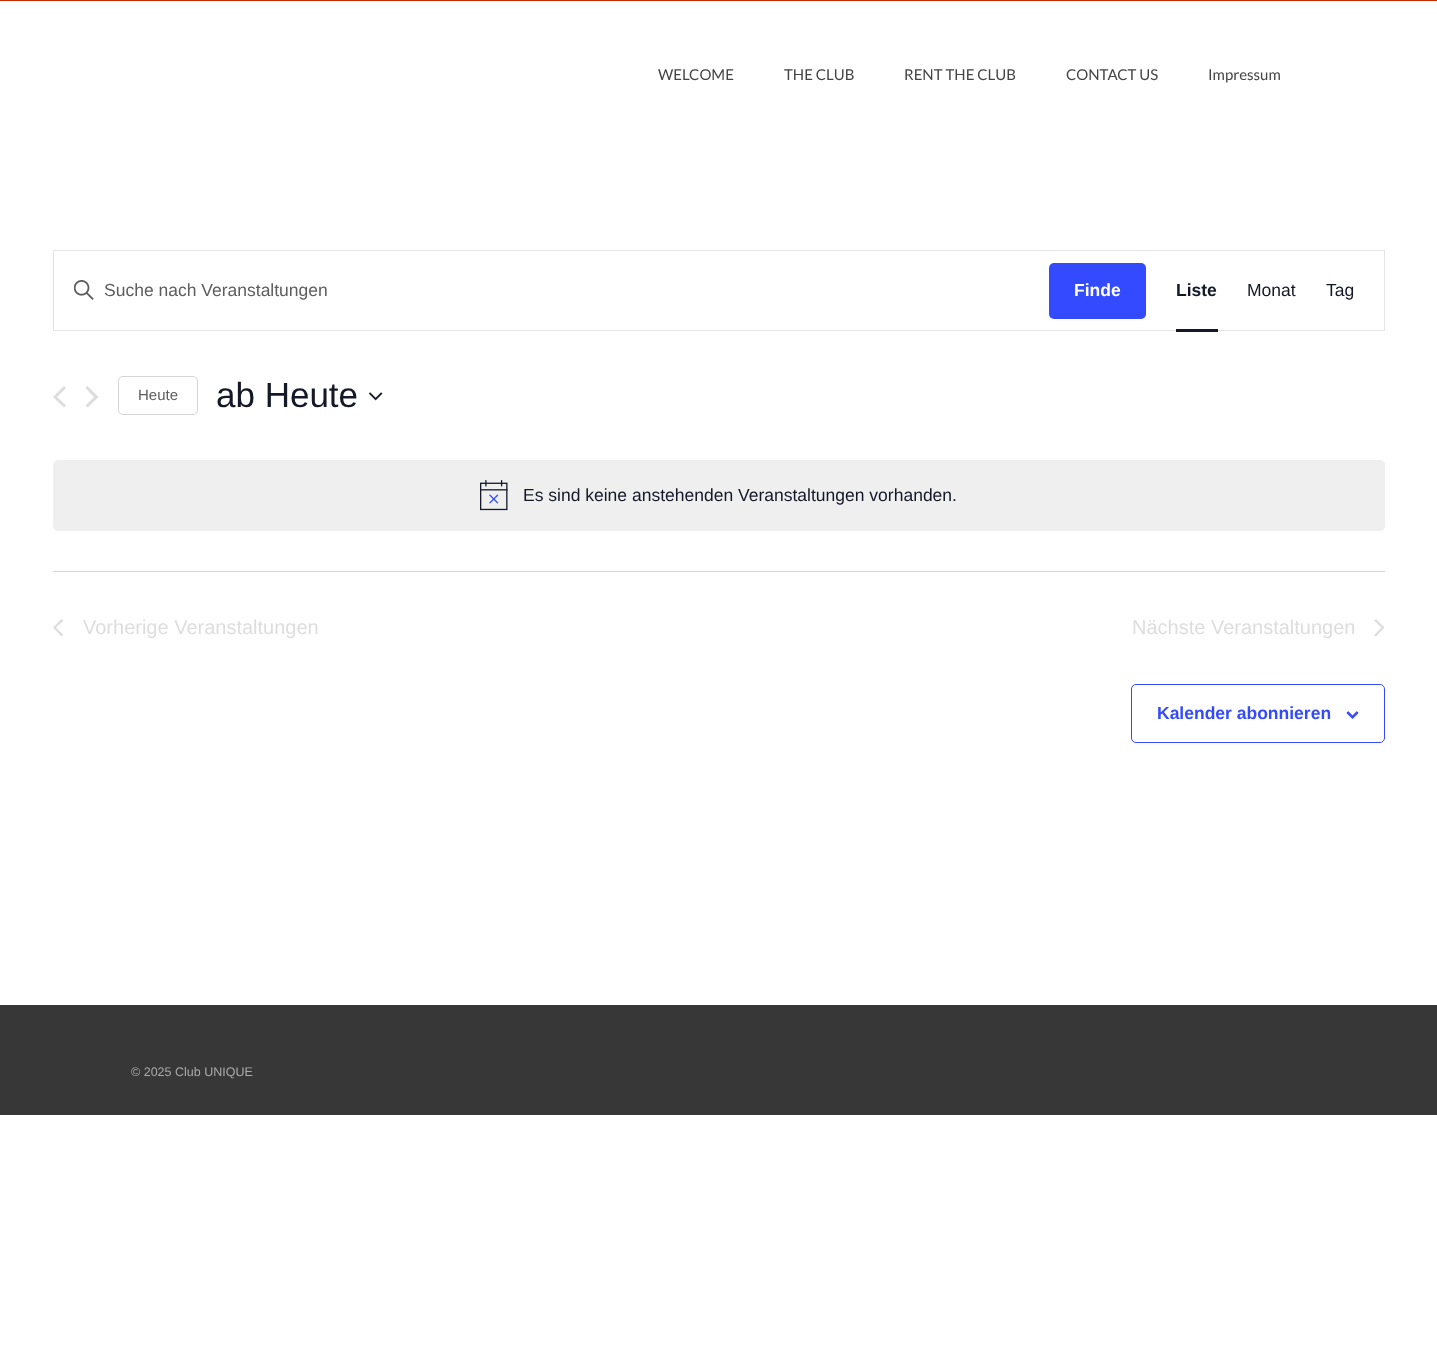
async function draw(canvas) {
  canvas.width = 1437
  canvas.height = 1368
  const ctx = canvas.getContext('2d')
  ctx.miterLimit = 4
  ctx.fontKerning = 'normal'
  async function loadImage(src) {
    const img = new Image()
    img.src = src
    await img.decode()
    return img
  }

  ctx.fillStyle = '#fff'
  ctx.fillRect(0, 0, 1437, 1368)
  ctx.fillStyle = '#c72c00'
  ctx.fillRect(0, 0, 1437, 1)
  ctx.font = '15px Lato'
  ctx.fillStyle = '#444'
  ctx.fillText('WELCOME', 658, 80)
  ctx.fillText('THE CLUB', 784, 80)
  ctx.fillText('RENT THE CLUB', 904, 80)
  ctx.fillText('CONTACT US', 1066, 80)
  ctx.fillText('Impressum', 1208, 80)
  ctx.strokeStyle = '#e4e4e4'
  ctx.strokeRect(53.5, 250.5, 1331, 80)
  ctx.drawImage(await loadImage('image0.png'), 74, 280, 20, 20)
  ctx.font = '17.5px Liberation Sans'
  ctx.fillStyle = '#5d5d5d'
  ctx.fillText('Suche nach Veranstaltungen', 104, 296)
  ctx.fillStyle = '#334aff'
  ctx.beginPath()
  ctx.roundRect(1049, 263, 97, 56, 5)
  ctx.fill()
  ctx.font = 'bold 17.5px Liberation Sans'
  ctx.fillStyle = '#fff'
  ctx.fillText('Finde', 1074, 296)
  ctx.fillStyle = '#141827'
  ctx.fillText('Liste', 1176, 296)
  ctx.fillRect(1176, 329, 42, 3)
  ctx.font = '17.5px Liberation Sans'
  ctx.fillText('Monat', 1247, 296)
  ctx.fillText('Tag', 1326, 296)
  ctx.fillStyle = '#ddd'
  ctx.beginPath()
  ctx.moveTo(66, 405.5)
  ctx.lineTo(64, 407.5)
  ctx.lineTo(53, 397)
  ctx.lineTo(64, 386)
  ctx.lineTo(66, 388)
  ctx.lineTo(57, 397)
  ctx.closePath()
  ctx.moveTo(85.5, 388)
  ctx.lineTo(87.5, 386)
  ctx.lineTo(98.5, 397)
  ctx.lineTo(87.5, 407.5)
  ctx.lineTo(85.5, 405.5)
  ctx.lineTo(94, 397)
  ctx.closePath()
  ctx.fill()
  ctx.beginPath()
  ctx.roundRect(118.5, 376.5, 79, 38, 4.5)
  ctx.strokeStyle = '#d5d5d5'
  ctx.stroke()
  ctx.font = '15px Liberation Sans'
  ctx.fillStyle = '#5d5d5d'
  ctx.fillText('Heute', 138, 400)
  ctx.font = '35px Liberation Sans'
  ctx.fillStyle = '#141827'
  ctx.fillText('ab Heute', 216, 407)
  ctx.drawImage(await loadImage('image1.png'), 369, 392, 14, 9)
  ctx.fillStyle = '#efeff0'
  ctx.beginPath()
  ctx.roundRect(53, 460, 1332, 71, 5)
  ctx.fill()
  ctx.drawImage(await loadImage('image2.png'), 480, 480, 28, 31)
  ctx.font = '17.5px Liberation Sans'
  ctx.fillStyle = '#141827'
  ctx.fillText('Es sind keine anstehenden Veranstaltungen vorhanden.', 523, 501)
  ctx.fillStyle = '#d5d5d5'
  ctx.fillRect(53, 571, 1332, 1)
  ctx.fillStyle = '#ddd'
  ctx.beginPath()
  ctx.moveTo(63.5, 635)
  ctx.lineTo(61.5, 636.5)
  ctx.lineTo(53, 627.5)
  ctx.lineTo(61.5, 619)
  ctx.lineTo(63.5, 620.5)
  ctx.lineTo(56, 627.5)
  ctx.closePath()
  ctx.fill()
  ctx.font = '20px Liberation Sans'
  ctx.fillText('Vorherige Veranstaltungen', 83, 634)
  ctx.fillText('Nächste Veranstaltungen', 1132, 634)
  ctx.beginPath()
  ctx.moveTo(1374, 620.5)
  ctx.lineTo(1376, 619)
  ctx.lineTo(1384.5, 627.5)
  ctx.lineTo(1376, 636.5)
  ctx.lineTo(1374, 635)
  ctx.lineTo(1381.5, 627.5)
  ctx.closePath()
  ctx.fill()
  ctx.beginPath()
  ctx.roundRect(1131.5, 684.5, 253, 58, 4.5)
  ctx.strokeStyle = '#334aff'
  ctx.stroke()
  ctx.font = 'bold 17.5px Liberation Sans'
  ctx.fillStyle = '#334aff'
  ctx.fillText('Kalender abonnieren', 1157, 719)
  ctx.drawImage(await loadImage('image3.png'), 1346, 711, 13, 8)
  ctx.fillStyle = '#373737'
  ctx.fillRect(0, 1005, 1437, 110)
  ctx.font = '12.5px Liberation Sans'
  ctx.fillStyle = '#aaa'
  ctx.fillText('© 2025 Club UNIQUE', 131, 1076)
}

draw(document.querySelector('canvas'))
